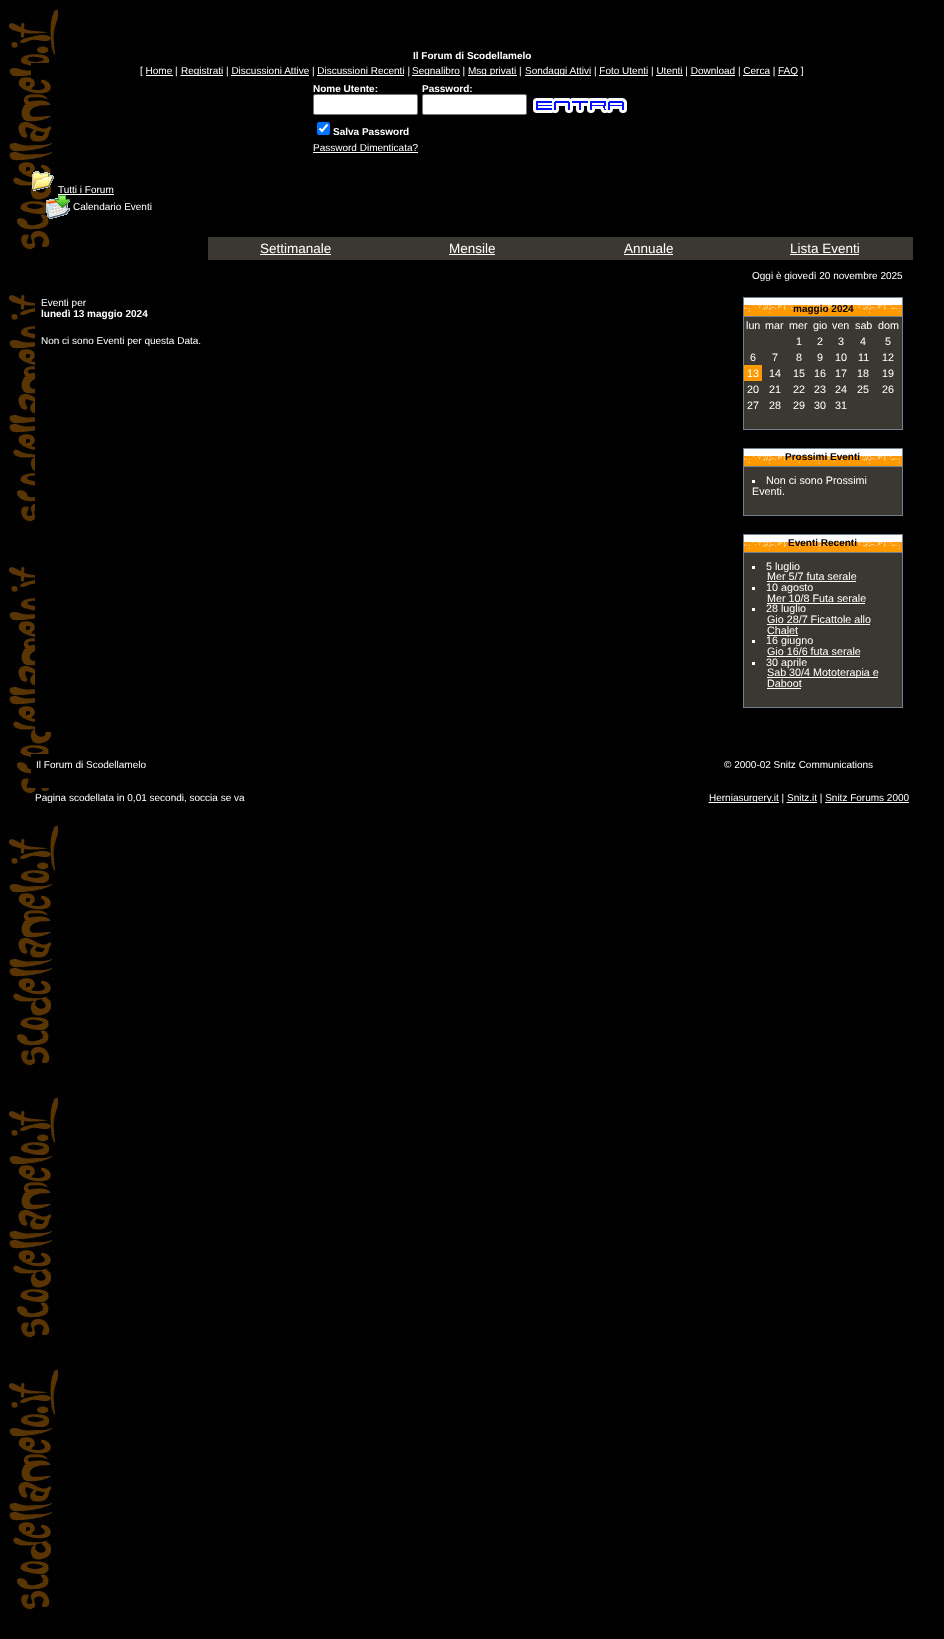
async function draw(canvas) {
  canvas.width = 944
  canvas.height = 1639
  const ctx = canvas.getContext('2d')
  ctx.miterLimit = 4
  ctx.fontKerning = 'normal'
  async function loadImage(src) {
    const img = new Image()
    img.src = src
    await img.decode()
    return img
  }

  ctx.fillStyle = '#000'
  ctx.fillRect(0, 0, 944, 1639)
  ctx.drawImage(await loadImage('image0.png'), 8, 8, 56, 1608)
  ctx.font = 'bold 10px Liberation Sans'
  ctx.fillStyle = '#fff'
  ctx.fillText('Il Forum di Scodellamelo', 413, 59)
  ctx.fillStyle = '#000'
  ctx.fillRect(31, 63, 25, 15)
  ctx.font = '10px Liberation Sans'
  ctx.fillStyle = '#fff'
  ctx.fillText('[ Home |', 140, 74)
  ctx.fillRect(146, 75, 27, 1)
  ctx.beginPath()
  ctx.moveTo(180.5, 75.5)
  ctx.lineTo(223, 75.5)
  ctx.strokeStyle = '#fff'
  ctx.setLineDash([1, 1])
  ctx.stroke()
  ctx.fillRect(181, 75, 42, 1)
  ctx.fillText('Registrati | Discussioni Attive | Discussioni Recenti |', 181, 74)
  ctx.fillRect(231, 75, 78, 1)
  ctx.fillRect(317, 75, 87, 1)
  ctx.fillRect(412, 75, 48, 1)
  ctx.fillText('Segnalibro |', 412, 74)
  ctx.fillRect(468, 75, 49, 1)
  ctx.fillText('Msg privati |', 468, 74)
  ctx.fillRect(525, 75, 66, 1)
  ctx.fillText('Sondaggi Attivi | Foto Utenti | Utenti | Download | Cerca |', 525, 74)
  ctx.fillRect(599, 75, 49, 1)
  ctx.fillRect(656, 75, 27, 1)
  ctx.beginPath()
  ctx.moveTo(690.5, 75.5)
  ctx.lineTo(735, 75.5)
  ctx.stroke()
  ctx.fillRect(691, 75, 44, 1)
  ctx.fillRect(743, 75, 27, 1)
  ctx.fillRect(778, 75, 20, 1)
  ctx.fillText('FAQ ]', 778, 74)
  ctx.font = 'bold 10px Liberation Sans'
  ctx.fillText('Nome Utente:', 313, 92)
  ctx.beginPath()
  ctx.roundRect(313.5, 94.5, 104, 20, 1.5)
  ctx.fill()
  ctx.strokeStyle = '#767676'
  ctx.setLineDash([])
  ctx.stroke()
  ctx.fillText('Password:', 422, 92)
  ctx.beginPath()
  ctx.roundRect(422.5, 94.5, 104, 20, 1.5)
  ctx.fill()
  ctx.stroke()
  ctx.drawImage(await loadImage('image1.png'), 533, 98, 94, 15)
  ctx.fillStyle = '#0075ff'
  ctx.beginPath()
  ctx.roundRect(317, 122, 13, 13, 2)
  ctx.fill()
  ctx.beginPath()
  ctx.moveTo(319.5, 128.5)
  ctx.lineTo(322, 131)
  ctx.lineTo(327.5, 124.5)
  ctx.strokeStyle = '#fff'
  ctx.lineWidth = 2.1
  ctx.stroke()
  ctx.fillStyle = '#fff'
  ctx.fillText('Salva Password', 333, 135)
  ctx.font = '10px Liberation Sans'
  ctx.fillText('Password Dimenticata?', 313, 151)
  ctx.fillRect(313, 152, 105, 1)
  ctx.drawImage(await loadImage('image2.png'), 32, 171, 22, 20)
  ctx.fillText('Tutti i Forum', 58, 193)
  ctx.fillRect(58, 194, 56, 1)
  ctx.drawImage(await loadImage('image3.png'), 46, 195, 24, 24)
  ctx.fillText('Calendario Eventi', 73, 210)
  ctx.fillStyle = '#3a3831'
  ctx.fillRect(208, 237, 705, 23)
  ctx.font = '13.5px Liberation Sans'
  ctx.fillStyle = '#fff'
  ctx.fillText('Settimanale', 260, 253)
  ctx.fillRect(260, 254, 71, 1)
  ctx.fillText('Mensile', 449, 253)
  ctx.fillRect(449, 254, 46, 1)
  ctx.fillText('Annuale', 624, 253)
  ctx.fillRect(624, 254, 49, 1)
  ctx.fillText('Lista Eventi', 790, 253)
  ctx.fillRect(790, 254, 69, 1)
  ctx.fillStyle = '#000'
  ctx.fillRect(35, 280, 29, 452)
  ctx.font = '10px Liberation Sans'
  ctx.fillStyle = '#fff'
  ctx.fillText('Oggi è giovedì 20 novembre 2025', 752, 279)
  ctx.fillText('Eventi per', 41, 306)
  ctx.font = 'bold 10px Liberation Sans'
  ctx.fillText('lunedì 13 maggio 2024', 41, 317)
  ctx.font = '10px Liberation Sans'
  ctx.fillText('Non ci sono Eventi per questa Data.', 41, 344)
  ctx.fillStyle = '#708090'
  ctx.fillRect(743, 297, 160, 133)
  ctx.fillStyle = '#f90'
  ctx.fillRect(744, 313, 158, 3)
  ctx.drawImage(await loadImage('image4.png'), 744, 298, 158, 15)
  ctx.font = 'bold 10px Liberation Sans'
  ctx.fillStyle = '#000'
  ctx.fillText('maggio 2024', 793, 312)
  ctx.fillStyle = '#3a3831'
  ctx.fillRect(744, 317, 158, 112)
  ctx.font = '10.75px Liberation Sans'
  ctx.fillStyle = '#fff'
  ctx.fillText('lun', 746, 329)
  ctx.fillText('mar', 765, 329)
  ctx.fillText('mer', 789, 329)
  ctx.fillText('gio', 813, 329)
  ctx.fillText('ven', 832, 329)
  ctx.fillText('sab', 855, 329)
  ctx.fillText('dom', 878, 329)
  ctx.fillText('1', 796, 345)
  ctx.fillText('2', 817, 345)
  ctx.fillText('3', 838, 345)
  ctx.fillText('4', 860, 345)
  ctx.fillText('5', 885, 345)
  ctx.fillText('6', 750, 361)
  ctx.fillText('7', 772, 361)
  ctx.fillText('8', 796, 361)
  ctx.fillText('9', 817, 361)
  ctx.fillText('10', 835, 361)
  ctx.fillText('11', 858, 361)
  ctx.fillText('12', 882, 361)
  ctx.fillStyle = '#f90'
  ctx.fillRect(744, 365, 18, 16)
  ctx.fillStyle = '#fff'
  ctx.fillText('13', 747, 377)
  ctx.fillText('14', 769, 377)
  ctx.fillText('15', 793, 377)
  ctx.fillText('16', 814, 377)
  ctx.fillText('17', 835, 377)
  ctx.fillText('18', 857, 377)
  ctx.fillText('19', 882, 377)
  ctx.fillText('20', 747, 393)
  ctx.fillText('21', 769, 393)
  ctx.fillText('22', 793, 393)
  ctx.fillText('23', 814, 393)
  ctx.fillText('24', 835, 393)
  ctx.fillText('25', 857, 393)
  ctx.fillText('26', 882, 393)
  ctx.fillText('27', 747, 409)
  ctx.fillText('28', 769, 409)
  ctx.fillText('29', 793, 409)
  ctx.fillText('30', 814, 409)
  ctx.fillText('31', 835, 409)
  ctx.fillStyle = '#708090'
  ctx.fillRect(743, 448, 160, 68)
  ctx.fillStyle = '#f90'
  ctx.fillRect(744, 464, 158, 2)
  ctx.drawImage(await loadImage('image4.png'), 744, 449, 158, 15)
  ctx.font = 'bold 10px Liberation Sans'
  ctx.fillStyle = '#000'
  ctx.fillText('Prossimi Eventi', 785, 460)
  ctx.fillStyle = '#3a3831'
  ctx.fillRect(744, 467, 158, 48)
  ctx.fillStyle = '#fff'
  ctx.fillRect(752, 480, 3, 3)
  ctx.font = '10.75px Liberation Sans'
  ctx.fillText('Non ci sono Prossimi', 766, 484)
  ctx.fillText('Eventi.', 752, 495)
  ctx.fillStyle = '#708090'
  ctx.fillRect(743, 534, 160, 174)
  ctx.fillStyle = '#f90'
  ctx.fillRect(744, 550, 158, 2)
  ctx.drawImage(await loadImage('image4.png'), 744, 535, 158, 15)
  ctx.font = 'bold 10px Liberation Sans'
  ctx.fillStyle = '#000'
  ctx.fillText('Eventi Recenti', 788, 546)
  ctx.fillStyle = '#3a3831'
  ctx.fillRect(744, 553, 158, 154)
  ctx.fillStyle = '#fff'
  ctx.fillRect(752, 566, 3, 3)
  ctx.font = '10.75px Liberation Sans'
  ctx.fillText('5 luglio', 766, 570)
  ctx.fillText('Mer 5/7 futa serale', 767, 580)
  ctx.fillRect(767, 581, 89, 1)
  ctx.fillRect(752, 587, 3, 3)
  ctx.fillText('10 agosto', 766, 591)
  ctx.fillText('Mer 10/8 Futa serale', 767, 602)
  ctx.fillRect(767, 603, 98, 1)
  ctx.fillRect(752, 608, 3, 3)
  ctx.fillText('28 luglio', 766, 612)
  ctx.fillText('Gio 28/7 Ficattole allo', 767, 623)
  ctx.fillRect(767, 624, 103, 1)
  ctx.fillText('Chalet', 767, 634)
  ctx.fillRect(767, 635, 31, 1)
  ctx.fillRect(752, 640, 3, 3)
  ctx.fillText('16 giugno', 766, 644)
  ctx.fillText('Gio 16/6 futa serale', 767, 655)
  ctx.fillRect(767, 656, 93, 1)
  ctx.fillRect(752, 662, 3, 3)
  ctx.fillText('30 aprile', 766, 666)
  ctx.fillRect(767, 677, 111, 1)
  ctx.fillText('Sab 30/4 Mototerapia e', 767, 676)
  ctx.fillText('Daboot', 767, 687)
  ctx.fillRect(767, 688, 34, 1)
  ctx.fillStyle = '#000'
  ctx.fillRect(31, 754, 25, 34)
  ctx.font = '10px Liberation Sans'
  ctx.fillStyle = '#fff'
  ctx.fillText('Il Forum di Scodellamelo', 36, 768)
  ctx.fillText('© 2000-02 Snitz Communications', 724, 768)
  ctx.fillText('Pagina scodellata in 0,01 secondi, soccia se va', 35, 801)
  ctx.beginPath()
  ctx.moveTo(708.5, 802.5)
  ctx.lineTo(778.5, 802.5)
  ctx.lineWidth = 1
  ctx.setLineDash([1, 1])
  ctx.stroke()
  ctx.fillRect(709, 802, 70, 1)
  ctx.fillText('Herniasurgery.it | Snitz.it | Snitz Forums 2000', 709, 801)
  ctx.beginPath()
  ctx.moveTo(786.5, 802.5)
  ctx.lineTo(816.5, 802.5)
  ctx.stroke()
  ctx.fillRect(787, 802, 30, 1)
  ctx.fillRect(825, 802, 84, 1)
}

draw(document.querySelector('canvas'))
